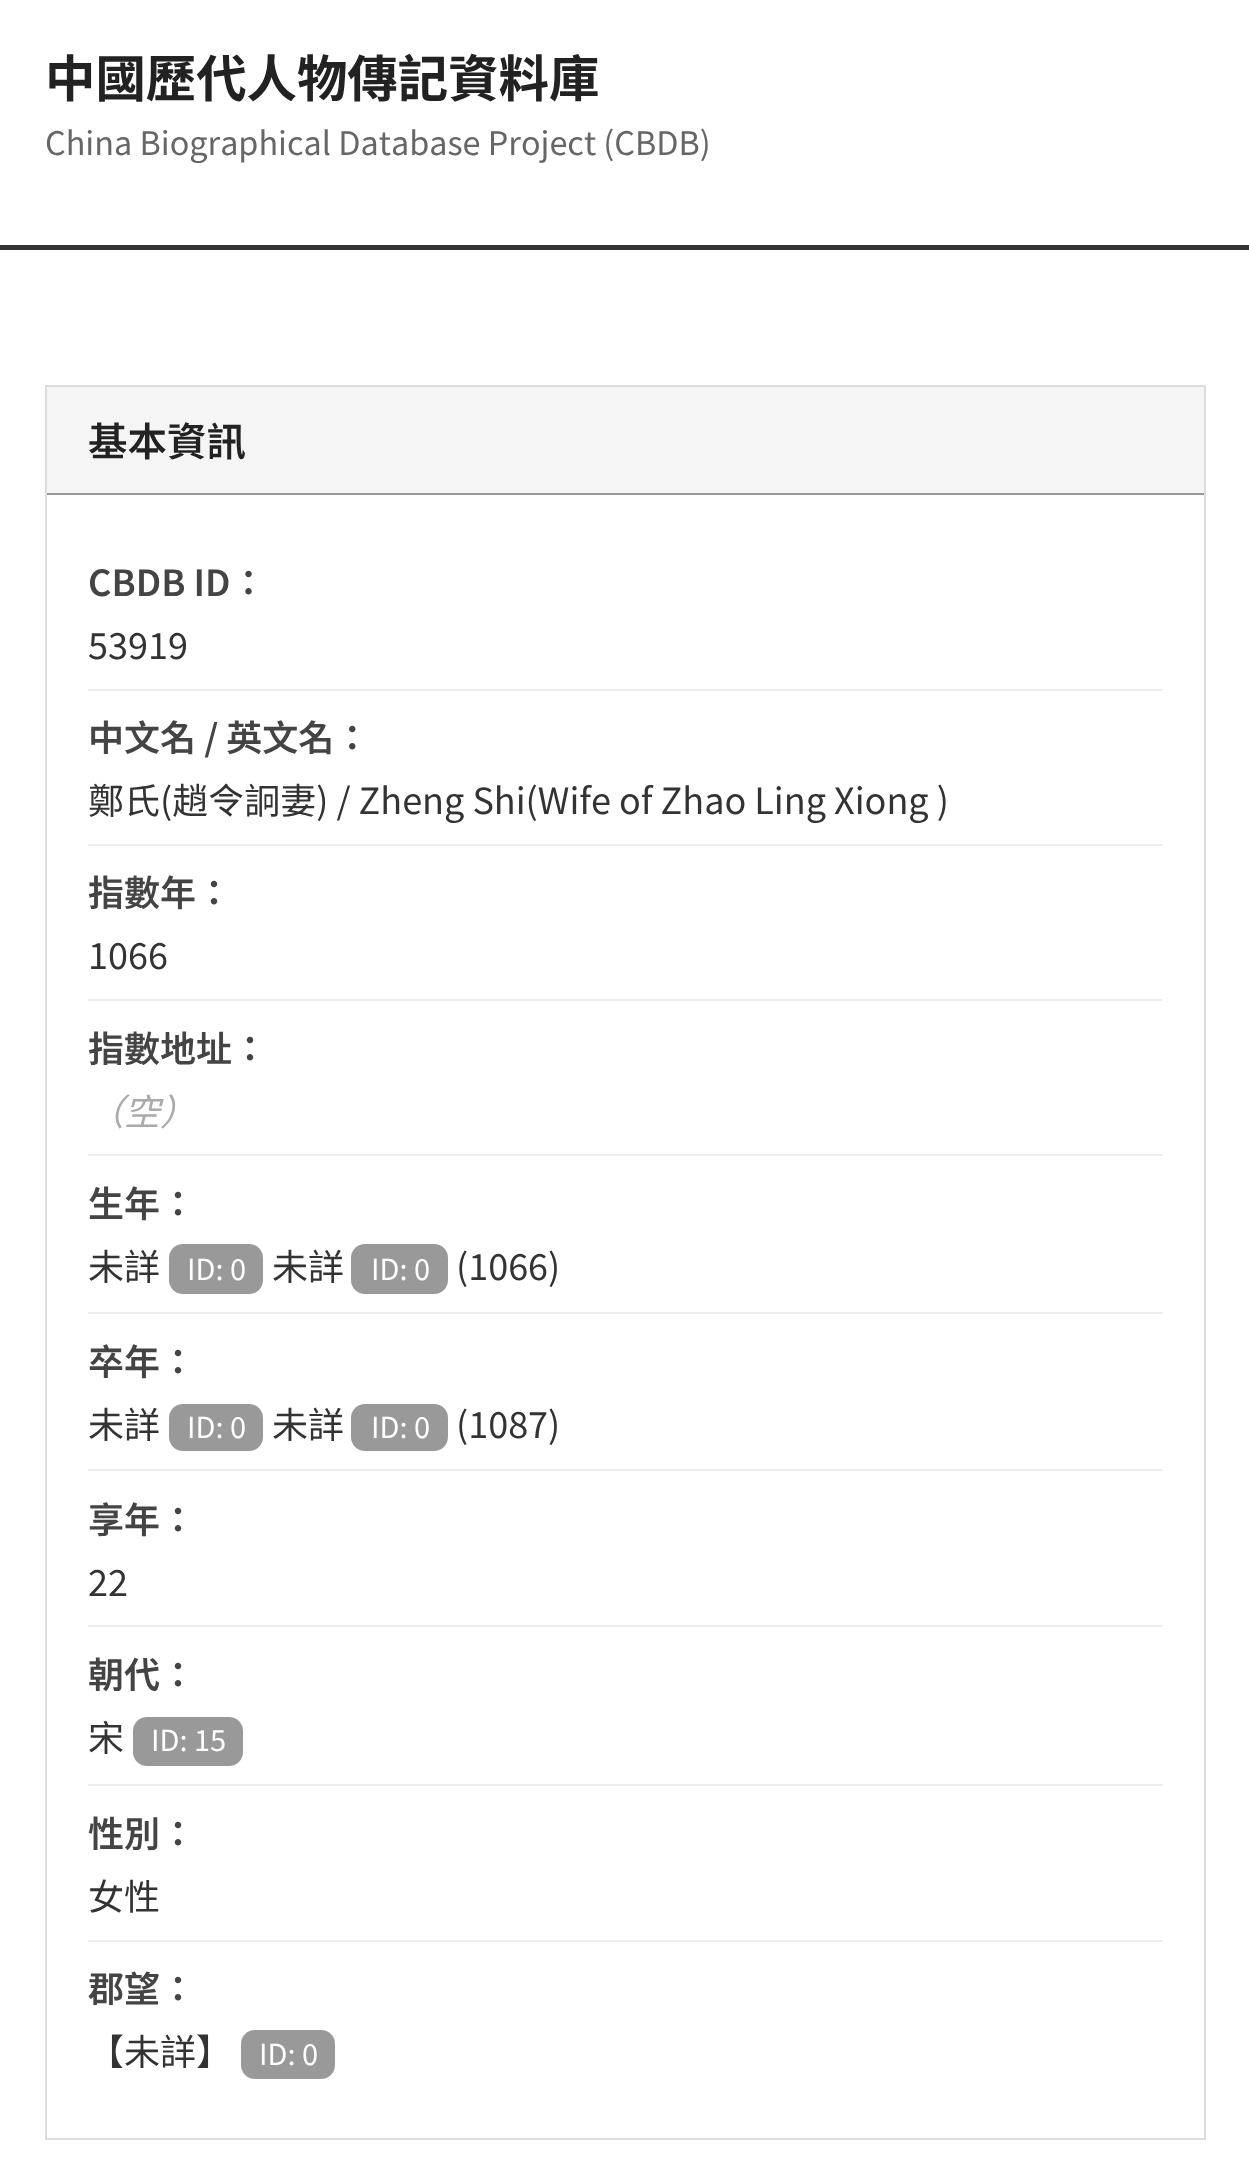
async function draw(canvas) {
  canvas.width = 1249
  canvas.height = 2180
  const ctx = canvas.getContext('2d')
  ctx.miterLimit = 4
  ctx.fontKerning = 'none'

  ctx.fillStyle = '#fff'
  ctx.fillRect(0, 0, 1249, 2180)
  ctx.fillStyle = '#333'
  ctx.fillRect(0, 245, 1249, 5)
  ctx.font = 'bold 50.4px Noto Sans TC'
  ctx.fillStyle = '#222'
  ctx.fillText('中國歷代人物傳記資料庫', 45, 97)
  ctx.font = '32.4px Noto Sans TC'
  ctx.fillStyle = '#666'
  ctx.fillText('China Biographical Database Project (CBDB)', 45, 155)
  ctx.strokeStyle = '#ddd'
  ctx.lineWidth = 2
  ctx.strokeRect(46, 386, 1159, 1753)
  ctx.fillStyle = '#f5f5f5'
  ctx.fillRect(47, 387, 1157, 106)
  ctx.fillStyle = '#999'
  ctx.fillRect(47, 493, 1157, 2)
  ctx.font = '600 39.5px Noto Sans TC'
  ctx.fillStyle = '#222'
  ctx.fillText('基本資訊', 88, 456)
  ctx.fillStyle = '#eee'
  ctx.fillRect(88, 689, 1075, 2)
  ctx.font = '600 36px Noto Sans TC'
  ctx.fillStyle = '#444'
  ctx.fillText('CBDB ID：', 88, 596)
  ctx.font = '36px Noto Sans TC'
  ctx.fillStyle = '#333'
  ctx.fillText('53919', 88, 659)
  ctx.fillStyle = '#eee'
  ctx.fillRect(88, 844, 1075, 2)
  ctx.font = '600 36px Noto Sans TC'
  ctx.fillStyle = '#444'
  ctx.fillText('中文名 / 英文名：', 88, 751)
  ctx.font = '36px Noto Sans TC'
  ctx.fillStyle = '#333'
  ctx.fillText('鄭氏(趙令詗妻) / Zheng Shi(Wife of Zhao Ling Xiong )', 88, 814)
  ctx.fillStyle = '#eee'
  ctx.fillRect(88, 999, 1075, 2)
  ctx.font = '600 36px Noto Sans TC'
  ctx.fillStyle = '#444'
  ctx.fillText('指數年：', 88, 906)
  ctx.font = '36px Noto Sans TC'
  ctx.fillStyle = '#333'
  ctx.fillText('1066', 88, 969)
  ctx.fillStyle = '#eee'
  ctx.fillRect(88, 1154, 1075, 2)
  ctx.font = '600 36px Noto Sans TC'
  ctx.fillStyle = '#444'
  ctx.fillText('指數地址：', 88, 1062)
  ctx.font = 'italic 36px Noto Sans TC'
  ctx.fillStyle = '#aaa'
  ctx.fillText('（空）', 88, 1125)
  ctx.fillStyle = '#eee'
  ctx.fillRect(88, 1312, 1075, 2)
  ctx.font = '600 36px Noto Sans TC'
  ctx.fillStyle = '#444'
  ctx.fillText('生年：', 88, 1217)
  ctx.font = '36px Noto Sans TC'
  ctx.fillStyle = '#333'
  ctx.fillText('未詳', 88, 1280)
  ctx.fillStyle = '#999'
  ctx.beginPath()
  ctx.roundRect(169, 1244, 94, 50, 14)
  ctx.fill()
  ctx.font = '29px Noto Sans TC'
  ctx.fillStyle = '#fff'
  ctx.fillText('ID: 0', 187, 1280)
  ctx.font = '36px Noto Sans TC'
  ctx.fillStyle = '#333'
  ctx.fillText('未詳', 272, 1280)
  ctx.fillStyle = '#999'
  ctx.beginPath()
  ctx.roundRect(351, 1244, 97, 50, 14)
  ctx.fill()
  ctx.font = '29px Noto Sans TC'
  ctx.fillStyle = '#fff'
  ctx.fillText('ID: 0', 371, 1280)
  ctx.font = '36px Noto Sans TC'
  ctx.fillStyle = '#333'
  ctx.fillText('(1066)', 456, 1280)
  ctx.fillStyle = '#eee'
  ctx.fillRect(88, 1469, 1075, 2)
  ctx.font = '600 36px Noto Sans TC'
  ctx.fillStyle = '#444'
  ctx.fillText('卒年：', 88, 1375)
  ctx.font = '36px Noto Sans TC'
  ctx.fillStyle = '#333'
  ctx.fillText('未詳', 88, 1438)
  ctx.fillStyle = '#999'
  ctx.beginPath()
  ctx.roundRect(169, 1404, 94, 47, 14)
  ctx.fill()
  ctx.font = '29px Noto Sans TC'
  ctx.fillStyle = '#fff'
  ctx.fillText('ID: 0', 187, 1438)
  ctx.font = '36px Noto Sans TC'
  ctx.fillStyle = '#333'
  ctx.fillText('未詳', 272, 1438)
  ctx.fillStyle = '#999'
  ctx.beginPath()
  ctx.roundRect(351, 1404, 97, 47, 14)
  ctx.fill()
  ctx.font = '29px Noto Sans TC'
  ctx.fillStyle = '#fff'
  ctx.fillText('ID: 0', 371, 1438)
  ctx.font = '36px Noto Sans TC'
  ctx.fillStyle = '#333'
  ctx.fillText('(1087)', 456, 1438)
  ctx.fillStyle = '#eee'
  ctx.fillRect(88, 1625, 1075, 2)
  ctx.font = '600 36px Noto Sans TC'
  ctx.fillStyle = '#444'
  ctx.fillText('享年：', 88, 1533)
  ctx.font = '36px Noto Sans TC'
  ctx.fillStyle = '#333'
  ctx.fillText('22', 88, 1596)
  ctx.fillStyle = '#eee'
  ctx.fillRect(88, 1784, 1075, 2)
  ctx.font = '600 36px Noto Sans TC'
  ctx.fillStyle = '#444'
  ctx.fillText('朝代：', 88, 1688)
  ctx.font = '36px Noto Sans TC'
  ctx.fillStyle = '#333'
  ctx.fillText('宋', 88, 1751)
  ctx.fillStyle = '#999'
  ctx.beginPath()
  ctx.roundRect(133, 1717, 110, 49, 14)
  ctx.fill()
  ctx.font = '29px Noto Sans TC'
  ctx.fillStyle = '#fff'
  ctx.fillText('ID: 15', 151, 1751)
  ctx.fillStyle = '#eee'
  ctx.fillRect(88, 1940, 1075, 2)
  ctx.font = '600 36px Noto Sans TC'
  ctx.fillStyle = '#444'
  ctx.fillText('性別：', 88, 1847)
  ctx.font = '36px Noto Sans TC'
  ctx.fillStyle = '#333'
  ctx.fillText('女性', 88, 1910)
  ctx.font = '600 36px Noto Sans TC'
  ctx.fillStyle = '#444'
  ctx.fillText('郡望：', 88, 2002)
  ctx.font = '36px Noto Sans TC'
  ctx.fillStyle = '#333'
  ctx.fillText('【未詳】', 88, 2065)
  ctx.fillStyle = '#999'
  ctx.beginPath()
  ctx.roundRect(241, 2030, 94, 49, 14)
  ctx.fill()
  ctx.font = '29px Noto Sans TC'
  ctx.fillStyle = '#fff'
  ctx.fillText('ID: 0', 259, 2065)
}

draw(document.querySelector('canvas'))
